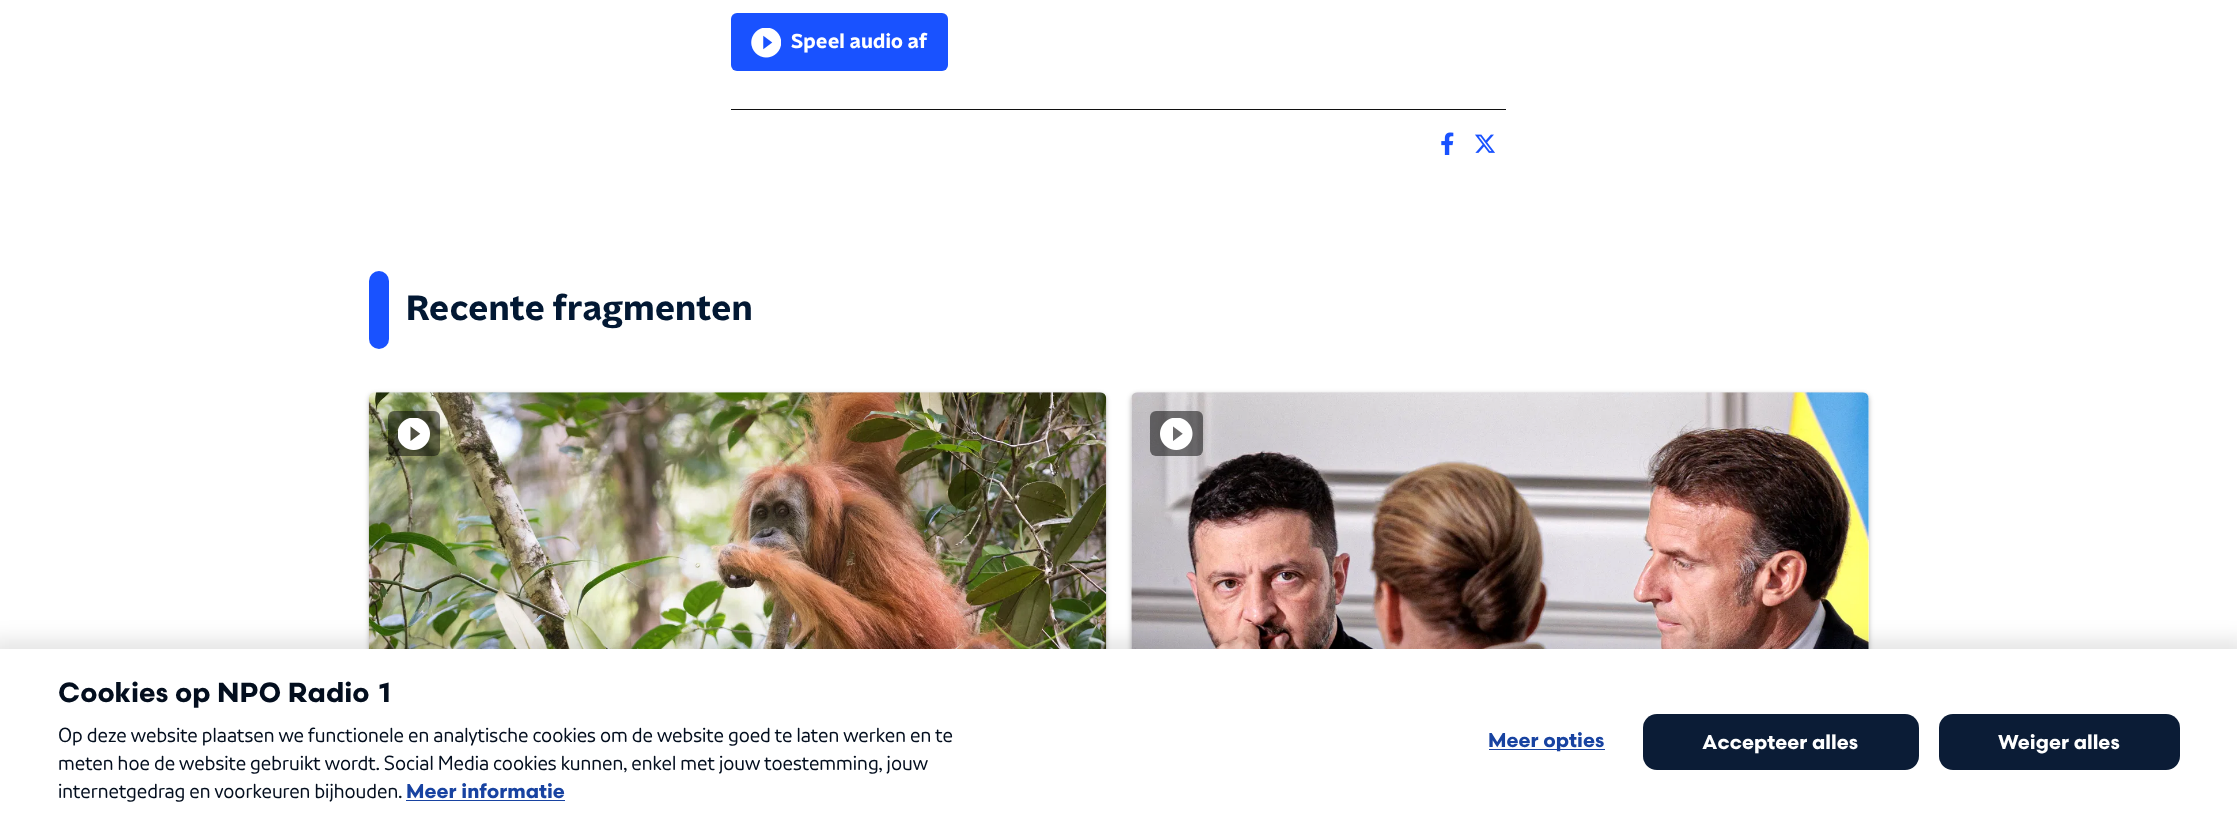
async function draw(canvas) {
  canvas.width = 2237
  canvas.height = 836
  const ctx = canvas.getContext('2d')
  ctx.miterLimit = 4
  ctx.fontKerning = 'normal'
  async function loadImage(src) {
    const img = new Image()
    img.src = src
    await img.decode()
    return img
  }

  ctx.fillStyle = '#fff'
  ctx.fillRect(0, 0, 2237, 836)
  ctx.fillStyle = '#1952ff'
  ctx.beginPath()
  ctx.roundRect(731, 13, 217, 58, 6)
  ctx.fill()
  ctx.drawImage(await loadImage('image0.png'), 751, 28, 30, 30)
  ctx.font = 'bold 20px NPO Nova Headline'
  ctx.fillStyle = '#fff'
  ctx.fillText('Speel audio af', 791, 48)
  ctx.fillStyle = '#101010'
  ctx.fillRect(731, 109, 775, 1)
  ctx.drawImage(await loadImage('image1.png'), 1441, 132, 13, 23)
  ctx.drawImage(await loadImage('image2.png'), 1475, 134, 20, 19)
  ctx.fillStyle = '#1952ff'
  ctx.beginPath()
  ctx.roundRect(369, 271, 20, 78, 10)
  ctx.fill()
  ctx.font = 'bold 35px NPO Nova Headline'
  ctx.fillStyle = '#021833'
  ctx.fillText('Recente fragmenten', 406, 320)
  ctx.fillStyle = '#00000040'
  ctx.filter = 'blur(2.5px)'
  ctx.beginPath()
  ctx.roundRect(369, 394, 737, 415, 6)
  ctx.fill()
  ctx.filter = 'none'
  ctx.drawImage(await loadImage('image3.png'), 368, 392, 739, 257)
  ctx.fillStyle = '#00000080'
  ctx.beginPath()
  ctx.roundRect(388, 411, 52, 45, 6)
  ctx.fill()
  ctx.drawImage(await loadImage('image4.png'), 398, 418, 32, 32)
  ctx.fillStyle = '#00000040'
  ctx.filter = 'blur(2.5px)'
  ctx.beginPath()
  ctx.roundRect(1131, 394, 738, 415, 6)
  ctx.fill()
  ctx.filter = 'none'
  ctx.fillStyle = '#fff'
  ctx.beginPath()
  ctx.roundRect(1131, 393, 738, 415, 6)
  ctx.fill()
  ctx.drawImage(await loadImage('image5.png'), 1131, 392, 738, 257)
  ctx.fillStyle = '#00000080'
  ctx.beginPath()
  ctx.roundRect(1150, 411, 53, 45, 6)
  ctx.fill()
  ctx.drawImage(await loadImage('image6.png'), 1160, 418, 33, 32)
  ctx.fillStyle = '#0000001a'
  ctx.filter = 'blur(9.5px)'
  ctx.beginPath()
  ctx.rect(-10, 639, 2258, 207)
  ctx.fill()
  ctx.filter = 'none'
  ctx.fillStyle = '#fff'
  ctx.fillRect(0, 649, 2237, 187)
  ctx.font = 'bold 27.5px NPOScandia'
  ctx.fillStyle = '#030e1e'
  ctx.fillText('Cookies op NPO Radio 1', 58, 702)
  ctx.font = '20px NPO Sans'
  ctx.fillText('Op deze website plaatsen we functionele en analytische cookies om de website goed te laten werken en te', 58, 742)
  ctx.fillText('meten hoe de website gebruikt wordt. Social Media cookies kunnen, enkel met jouw toestemming, jouw', 58, 770)
  ctx.fillText('internetgedrag en voorkeuren bijhouden.', 58, 798)
  ctx.font = 'bold 20px NPOScandia'
  ctx.fillStyle = '#1843a1'
  ctx.fillText('Meer informatie', 406, 798)
  ctx.fillRect(406, 800, 159, 1)
  ctx.fillRect(1489, 749, 116, 1)
  ctx.fillText('Meer opties', 1488, 747)
  ctx.fillStyle = '#0b1c36'
  ctx.beginPath()
  ctx.roundRect(1643, 714, 276, 56, 14)
  ctx.fill()
  ctx.fillStyle = '#fff'
  ctx.fillText('Accepteer alles', 1702, 749)
  ctx.fillStyle = '#0b1c36'
  ctx.beginPath()
  ctx.roundRect(1939, 714, 241, 56, 14)
  ctx.fill()
  ctx.fillStyle = '#fff'
  ctx.fillText('Weiger alles', 1998, 749)
}

draw(document.querySelector('canvas'))
